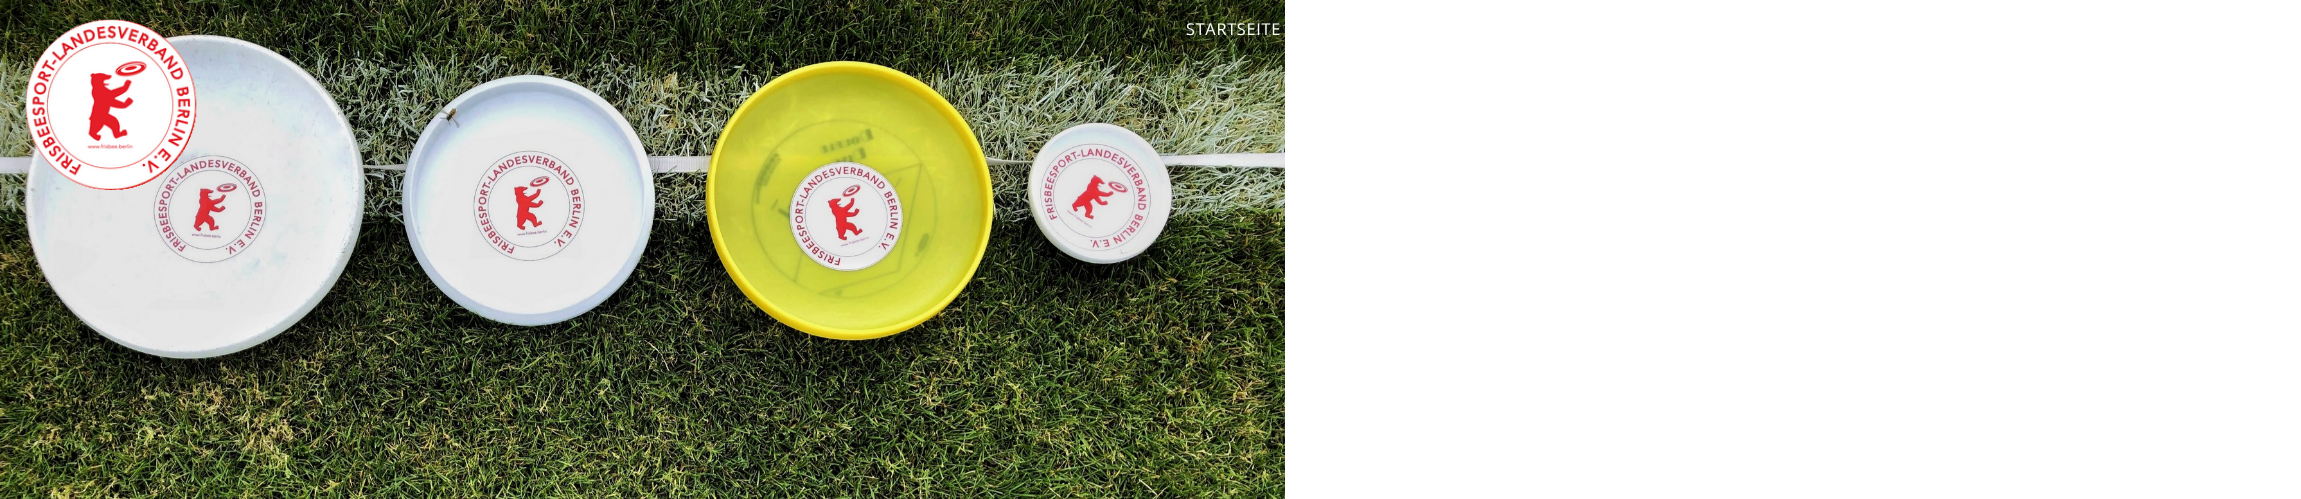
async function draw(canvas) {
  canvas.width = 2301
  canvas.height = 499
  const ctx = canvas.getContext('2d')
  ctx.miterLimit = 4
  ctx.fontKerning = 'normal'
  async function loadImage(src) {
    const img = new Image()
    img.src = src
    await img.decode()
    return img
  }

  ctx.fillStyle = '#fff'
  ctx.fillRect(0, 0, 2301, 499)
  ctx.drawImage(await loadImage('image0.png'), 0, 0, 1285, 499)
  ctx.drawImage(await loadImage('image1.png'), 25, 18, 172, 172)
  ctx.letterSpacing = '0.75px'
  ctx.font = '16.25px Open Sans'
  ctx.fillText('STARTSEITE', 1186, 35)
}

draw(document.querySelector('canvas'))
